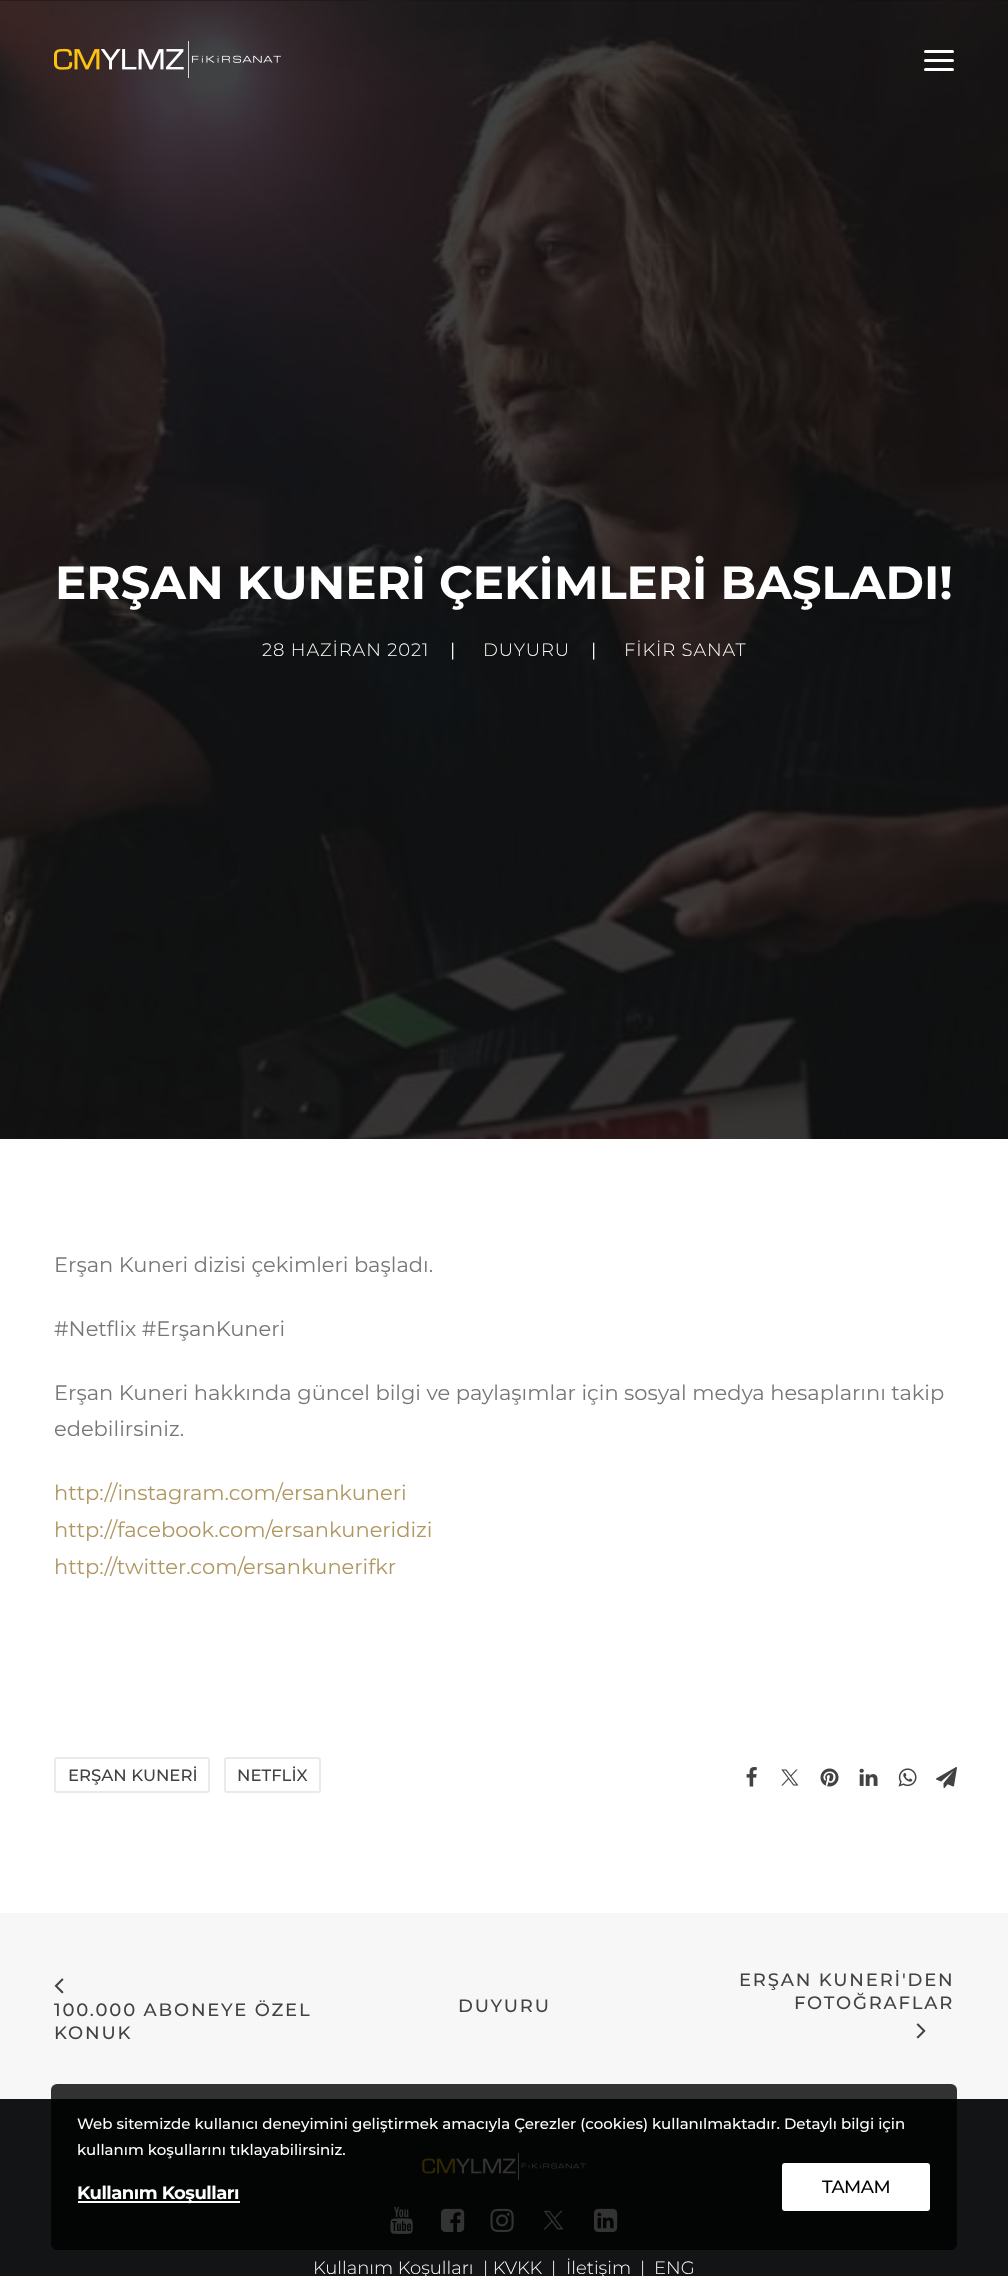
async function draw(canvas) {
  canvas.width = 1008
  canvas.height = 2276
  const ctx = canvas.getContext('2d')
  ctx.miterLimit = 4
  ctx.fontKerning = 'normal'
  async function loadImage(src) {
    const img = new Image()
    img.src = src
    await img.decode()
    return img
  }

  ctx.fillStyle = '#fff'
  ctx.fillRect(0, 0, 1008, 2276)
  ctx.drawImage(await loadImage('image1.png'), 0, 0, 1008, 1139)
  ctx.drawImage(await loadImage('image0.png'), 54, 41, 227, 37)
  ctx.beginPath()
  ctx.roundRect(924, 59, 30, 3, 1.5)
  ctx.fill()
  ctx.beginPath()
  ctx.roundRect(924, 50, 30, 3, 1.5)
  ctx.fill()
  ctx.beginPath()
  ctx.roundRect(924, 68, 30, 3, 1.5)
  ctx.fill()
  ctx.font = 'bold 46.6px Montserrat'
  ctx.fillText('ERŞAN KUNERİ ÇEKİMLERİ BAŞLADI!', 55, 599)
  ctx.letterSpacing = '0.9px'
  ctx.font = '300 18px Montserrat'
  ctx.fillText('28 HAZİRAN 2021', 262, 656)
  ctx.font = '18px Montserrat'
  ctx.fillText('|', 450, 656)
  ctx.font = '300 18px Montserrat'
  ctx.fillText('DUYURU', 483, 656)
  ctx.font = '18px Montserrat'
  ctx.fillText('|', 591, 656)
  ctx.font = '300 18px Montserrat'
  ctx.fillText('FİKİR SANAT', 624, 656)
  ctx.letterSpacing = '0px'
  ctx.font = '21px Montserrat'
  ctx.fillStyle = '#777'
  ctx.fillText('Erşan Kuneri dizisi çekimleri başladı.', 54, 1272)
  ctx.fillText('#Netflix #ErşanKuneri', 54, 1336)
  ctx.fillText('Erşan Kuneri hakkında güncel bilgi ve paylaşımlar için sosyal medya hesaplarını takip', 54, 1400)
  ctx.fillText('edebilirsiniz.', 54, 1436)
  ctx.fillStyle = '#af9762'
  ctx.fillText('http://instagram.com/ersankuneri', 54, 1500)
  ctx.fillText('http://facebook.com/ersankuneridizi', 54, 1537)
  ctx.fillText('http://twitter.com/ersankunerifkr', 54, 1574)
  ctx.beginPath()
  ctx.roundRect(55, 1758, 154, 34, 2)
  ctx.strokeStyle = '#eaeaea'
  ctx.lineWidth = 2
  ctx.stroke()
  ctx.font = '500 16.5px Montserrat'
  ctx.fillStyle = '#424242'
  ctx.fillText('ERŞAN KUNERİ', 68, 1781)
  ctx.beginPath()
  ctx.roundRect(225, 1758, 95, 34, 2)
  ctx.stroke()
  ctx.fillText('NETFLİX', 237, 1781)
  ctx.drawImage(await loadImage('image2.png'), 746, 1767, 11, 20)
  ctx.drawImage(await loadImage('image3.png'), 781, 1769, 18, 17)
  ctx.drawImage(await loadImage('image4.png'), 820, 1768, 19, 19)
  ctx.drawImage(await loadImage('image5.png'), 859, 1768, 19, 18)
  ctx.drawImage(await loadImage('image6.png'), 898, 1768, 19, 19)
  ctx.drawImage(await loadImage('image7.png'), 936, 1767, 21, 21)
  ctx.fillStyle = '#f7f7f7'
  ctx.fillRect(0, 1913, 1008, 186)
  ctx.drawImage(await loadImage('image8.png'), 54, 1978, 10, 16)
  ctx.letterSpacing = '1.8px'
  ctx.font = '500 18px Montserrat'
  ctx.fillStyle = '#424242'
  ctx.fillText('100.000 ABONEYE ÖZEL', 54, 2016)
  ctx.fillText('KONUK', 54, 2039)
  ctx.fillText('DUYURU', 458, 2012)
  ctx.fillText('ERŞAN KUNERİ\'DEN', 739, 1986)
  ctx.fillText('FOTOĞRAFLAR', 794, 2009)
  ctx.drawImage(await loadImage('image9.png'), 916, 2023, 10, 16)
  ctx.fillStyle = '#121416'
  ctx.fillRect(0, 2099, 1008, 177)
  ctx.drawImage(await loadImage('image10.png'), 422, 2153, 164, 27)
  ctx.drawImage(await loadImage('image11.png'), 390, 2206, 23, 28)
  ctx.drawImage(await loadImage('image12.png'), 441, 2208, 24, 24)
  ctx.drawImage(await loadImage('image13.png'), 490, 2208, 24, 24)
  ctx.drawImage(await loadImage('image14.png'), 543, 2210, 21, 20)
  ctx.drawImage(await loadImage('image15.png'), 594, 2208, 24, 24)
  ctx.letterSpacing = '0px'
  ctx.font = '300 18px Montserrat'
  ctx.fillStyle = '#fff'
  ctx.fillText('Kullanım Koşulları', 313, 2274)
  ctx.fillText('| KVKK', 483, 2274)
  ctx.fillText('|', 551, 2274)
  ctx.fillText('İletişim', 566, 2274)
  ctx.fillText('|', 640, 2274)
  ctx.fillText('ENG', 654, 2274)
  ctx.fillStyle = '#000000cc'
  ctx.beginPath()
  ctx.roundRect(51, 2084, 906, 166, 6)
  ctx.fill()
  ctx.font = '500 15px Montserrat'
  ctx.fillStyle = '#fff'
  ctx.fillText('Web sitemizde kullanıcı deneyimini geliştirmek amacıyla Çerezler (cookies) kullanılmaktadır. Detaylı bilgi için', 77, 2129)
  ctx.fillText('kullanım koşullarını tıklayabilirsiniz.', 77, 2155)
  ctx.fillRect(78, 2201, 162, 2)
  ctx.letterSpacing = '-0.5px'
  ctx.font = 'bold 18px Montserrat'
  ctx.fillText('Kullanım Koşulları', 77, 2199)
  ctx.beginPath()
  ctx.roundRect(782, 2163, 148, 48, 3)
  ctx.fill()
  ctx.font = '500 18px Montserrat'
  ctx.fillStyle = '#000'
  ctx.fillText('TAMAM', 822, 2193)
}

draw(document.querySelector('canvas'))
